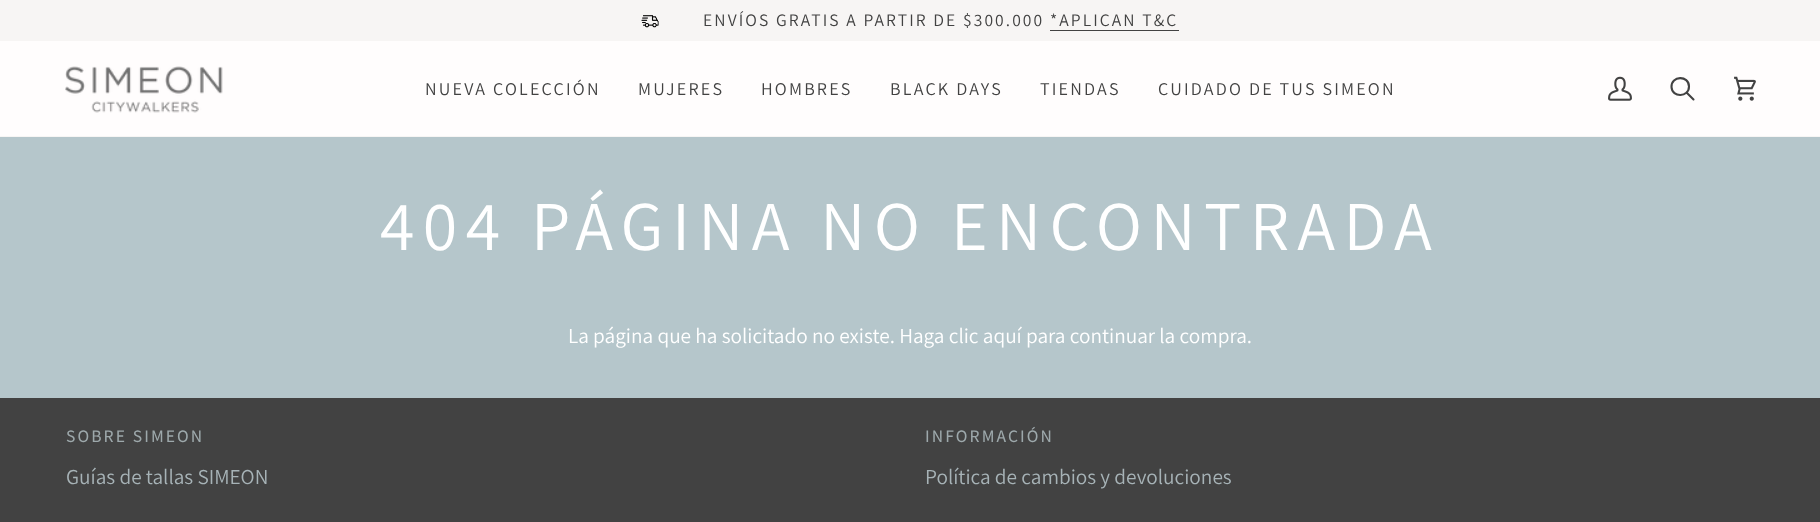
async function draw(canvas) {
  canvas.width = 1820
  canvas.height = 522
  const ctx = canvas.getContext('2d')
  ctx.miterLimit = 4
  ctx.fontKerning = 'normal'
  async function loadImage(src) {
    const img = new Image()
    img.src = src
    await img.decode()
    return img
  }

  ctx.fillStyle = '#b5c6cb'
  ctx.fillRect(0, 0, 1820, 522)
  ctx.fillStyle = '#f7f5f4'
  ctx.fillRect(0, 0, 1820, 41)
  ctx.drawImage(await loadImage('image0.png'), 641, 15, 18, 13)
  ctx.letterSpacing = '2.1px'
  ctx.font = '17.5px Assistant'
  ctx.fillStyle = '#424242'
  ctx.fillText('ENVÍOS GRATIS A PARTIR DE $300.000 *APLICAN T&C', 703, 26)
  ctx.fillRect(1050, 30, 129, 1)
  ctx.fillStyle = '#fffdfd'
  ctx.fillRect(0, 41, 1820, 95)
  ctx.fillStyle = '#f7f5f4'
  ctx.fillRect(0, 136, 1820, 1)
  ctx.drawImage(await loadImage('image1.png'), 65, 66, 158, 47)
  ctx.letterSpacing = '2.2px'
  ctx.font = '18px Assistant'
  ctx.fillStyle = '#424242'
  ctx.fillText('NUEVA COLECCIÓN', 425, 95)
  ctx.fillText('MUJERES', 638, 95)
  ctx.fillText('HOMBRES', 761, 95)
  ctx.fillText('BLACK DAYS', 890, 95)
  ctx.fillText('TIENDAS', 1040, 95)
  ctx.fillText('CUIDADO DE TUS SIMEON', 1158, 95)
  ctx.drawImage(await loadImage('image2.png'), 1608, 76, 24, 25)
  ctx.beginPath()
  ctx.moveTo(1689, 86.5)
  ctx.bezierCurveTo(1689, 97.5, 1672, 98, 1671.5, 87)
  ctx.bezierCurveTo(1671, 75.5, 1689, 75, 1689, 86.5)
  ctx.closePath()
  ctx.moveTo(1693.5, 99.5)
  ctx.lineTo(1686.5, 92.5)
  ctx.closePath()
  ctx.strokeStyle = '#424242'
  ctx.lineWidth = 2.1
  ctx.lineCap = 'round'
  ctx.lineJoin = 'round'
  ctx.stroke()
  ctx.drawImage(await loadImage('image3.png'), 1734, 76, 22, 25)
  ctx.letterSpacing = '8.4px'
  ctx.font = '70px Assistant'
  ctx.fillStyle = '#fff'
  ctx.fillText('404 PÁGINA NO ENCONTRADA', 380, 250)
  ctx.letterSpacing = '0px'
  ctx.font = '21.25px Assistant'
  ctx.fillText('La página que ha solicitado no existe. Haga clic aquí para continuar la compra.', 568, 343)
  ctx.fillStyle = '#424242'
  ctx.fillRect(0, 398, 1820, 124)
  ctx.letterSpacing = '2.1px'
  ctx.font = '500 17.5px Assistant'
  ctx.fillStyle = '#9da8ab'
  ctx.fillText('SOBRE SIMEON', 66, 442)
  ctx.letterSpacing = '0px'
  ctx.font = '21.25px Assistant'
  ctx.fillStyle = '#a7b3b7'
  ctx.fillText('Guías de tallas SIMEON', 66, 484)
  ctx.letterSpacing = '2.1px'
  ctx.font = '500 17.5px Assistant'
  ctx.fillStyle = '#9da8ab'
  ctx.fillText('INFORMACIÓN', 925, 442)
  ctx.letterSpacing = '0px'
  ctx.font = '21.25px Assistant'
  ctx.fillStyle = '#a7b3b7'
  ctx.fillText('Política de cambios y devoluciones', 925, 484)
}

draw(document.querySelector('canvas'))
